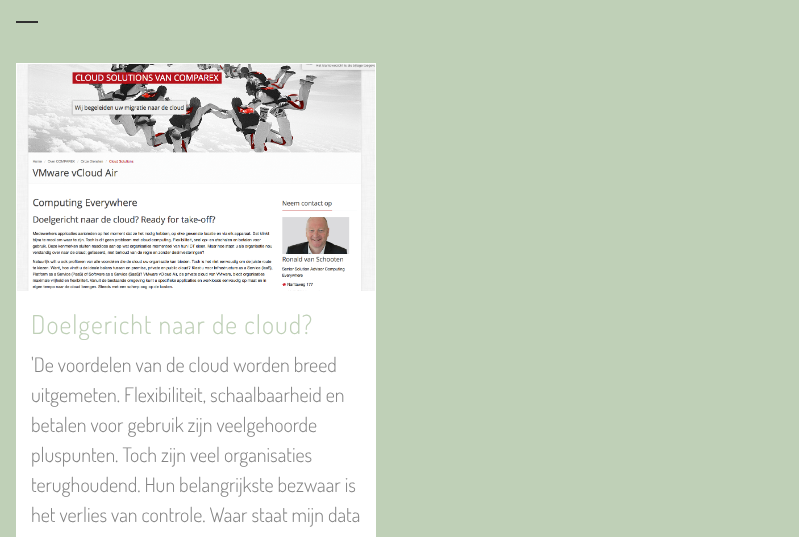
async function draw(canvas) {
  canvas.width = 799
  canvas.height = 537
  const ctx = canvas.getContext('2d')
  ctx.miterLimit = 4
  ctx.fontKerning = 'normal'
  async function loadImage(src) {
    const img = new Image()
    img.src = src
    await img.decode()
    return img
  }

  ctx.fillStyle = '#bfd0b7'
  ctx.fillRect(0, 0, 799, 537)
  ctx.fillStyle = '#303030'
  ctx.fillRect(16, 21, 22, 2)
  ctx.strokeStyle = '#fff'
  ctx.strokeRect(16.5, 63.5, 359, 228)
  ctx.drawImage(await loadImage('image0.png'), 17, 64, 358, 227)
  ctx.fillStyle = '#fff'
  ctx.fillRect(16, 292, 360, 245)
  ctx.letterSpacing = '1px'
  ctx.font = '300 26px Dosis'
  ctx.fillStyle = '#bfd0b7'
  ctx.fillText('Doelgericht naar de cloud?', 31, 334)
  ctx.letterSpacing = '0px'
  ctx.font = '300 20px Dosis'
  ctx.fillStyle = '#848484'
  ctx.fillText('\'De voordelen van de cloud worden breed', 31, 372)
  ctx.fillText('uitgemeten. Flexibiliteit, schaalbaarheid en', 31, 402)
  ctx.fillText('betalen voor gebruik zijn veelgehoorde', 31, 432)
  ctx.fillText('pluspunten. Toch zijn veel organisaties', 31, 462)
  ctx.fillText('terughoudend. Hun belangrijkste bezwaar is', 31, 492)
  ctx.fillText('het verlies van controle. Waar staat mijn data', 31, 522)
}

draw(document.querySelector('canvas'))
